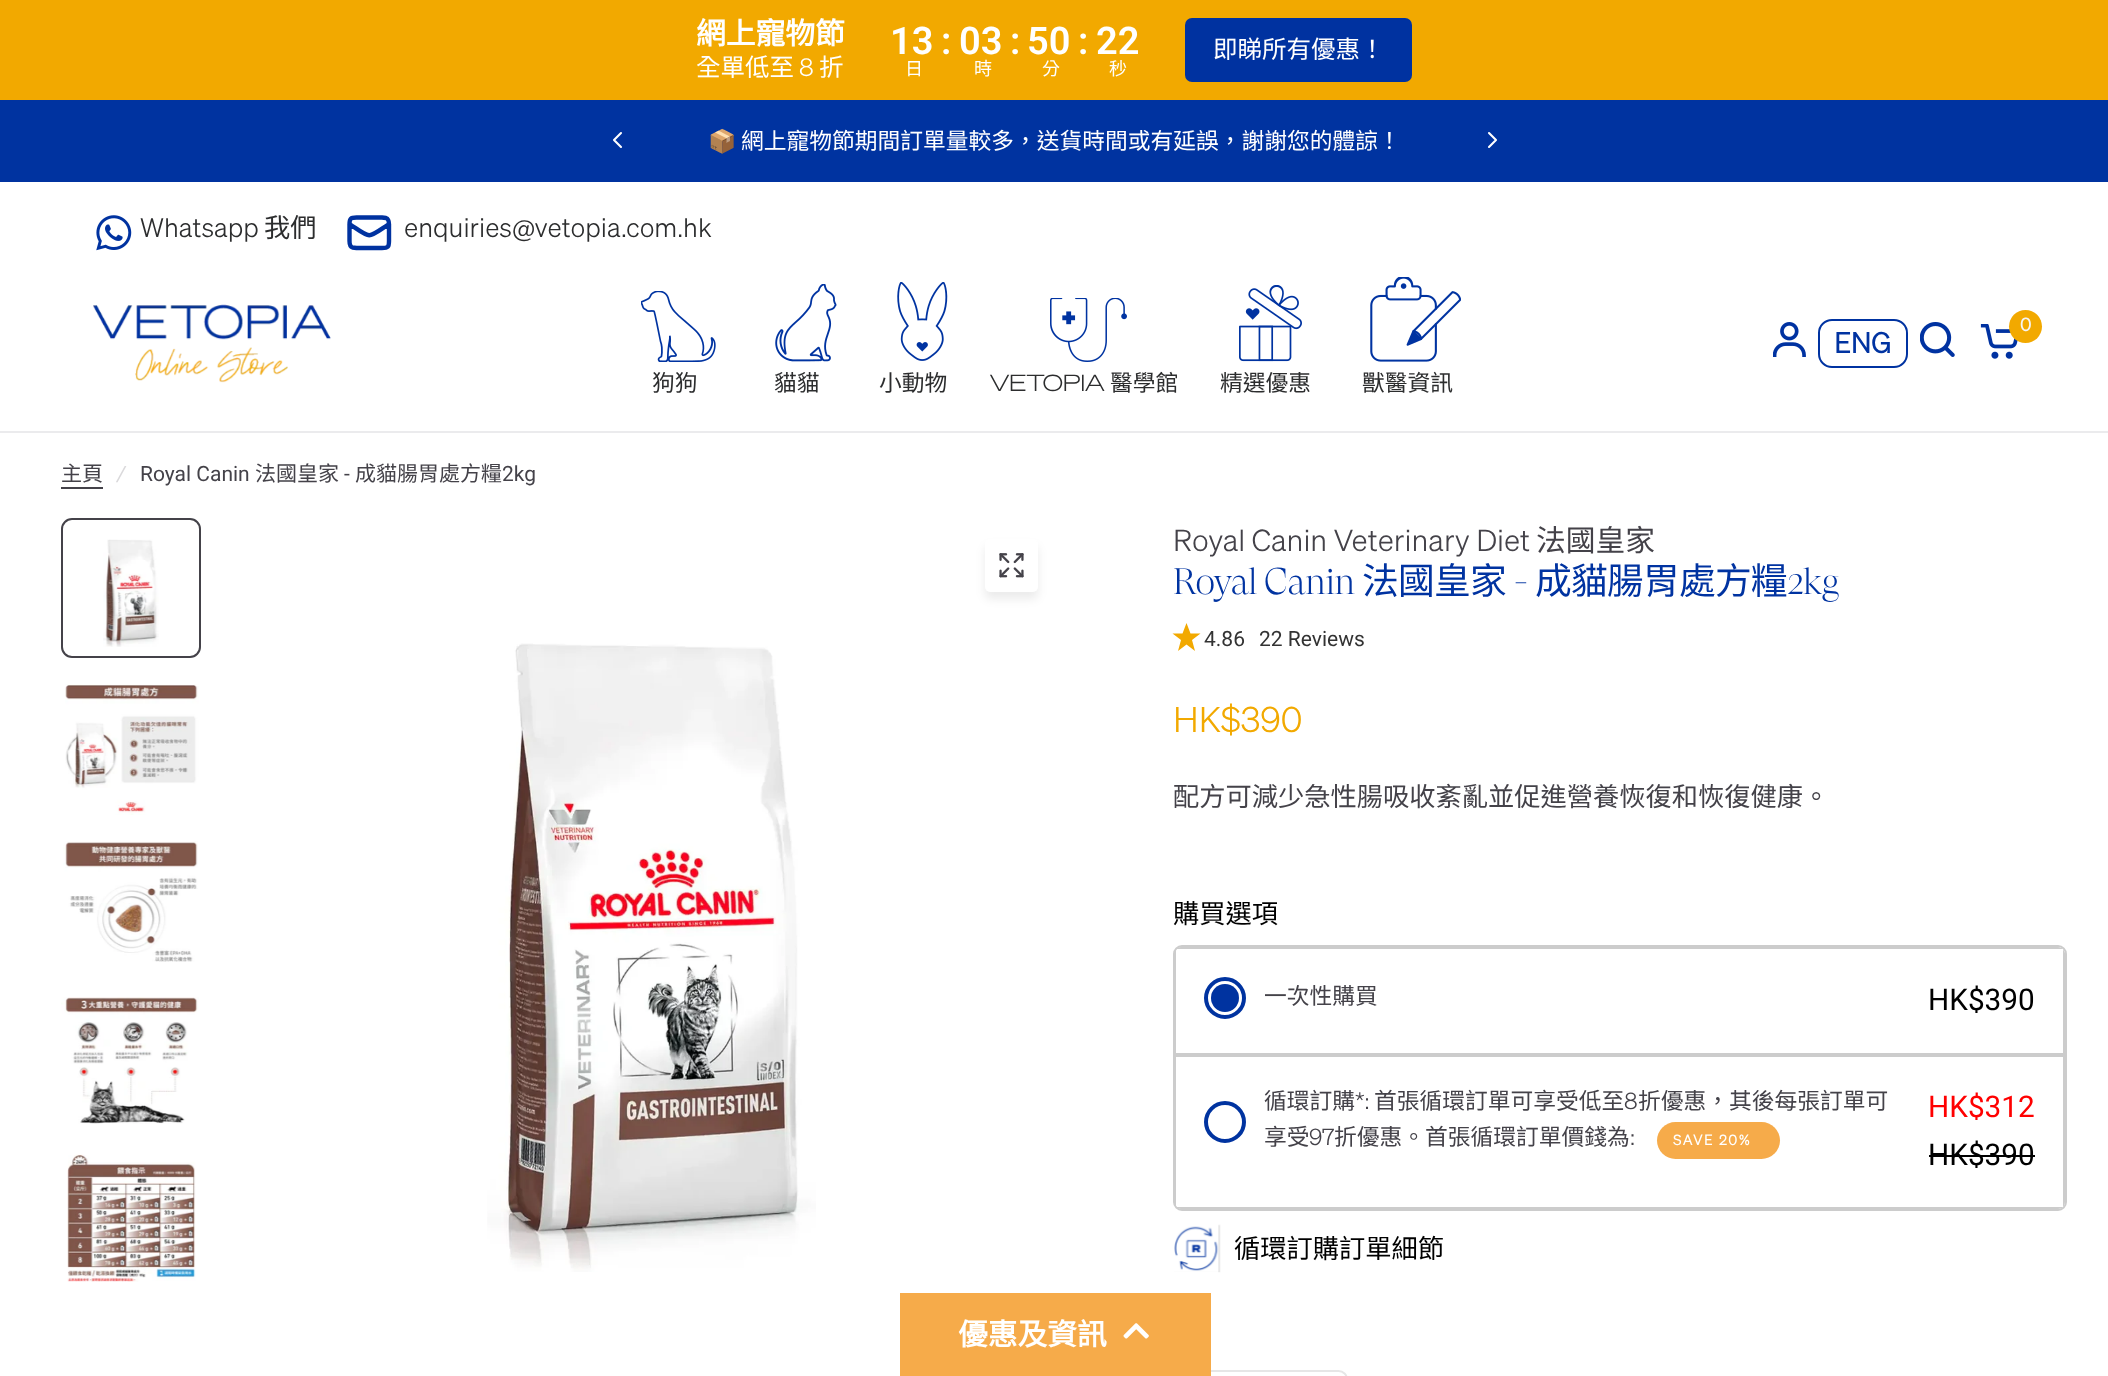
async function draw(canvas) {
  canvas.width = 2108
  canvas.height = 1376
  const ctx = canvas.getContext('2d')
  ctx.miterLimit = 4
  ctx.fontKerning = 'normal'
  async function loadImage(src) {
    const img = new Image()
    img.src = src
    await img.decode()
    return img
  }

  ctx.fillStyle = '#fff'
  ctx.fillRect(0, 0, 2108, 1376)
  ctx.fillStyle = '#f2a900'
  ctx.fillRect(0, 0, 2108, 100)
  ctx.font = 'bold 29.75px Noto Sans CJK TC'
  ctx.fillStyle = '#fff'
  ctx.fillText('網上寵物節', 696, 44)
  ctx.font = '24.5px Noto Sans CJK TC'
  ctx.fillText('全單低至', 696, 76)
  ctx.font = '300 24.5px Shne'
  ctx.fillText('8', 799, 76)
  ctx.font = '24.5px Noto Sans CJK TC'
  ctx.fillText('折', 819, 76)
  ctx.font = '600 38px Roboto'
  ctx.fillText('13', 890, 54)
  ctx.fillText(':', 941, 54)
  ctx.fillText('03', 959, 54)
  ctx.fillText(':', 1010, 54)
  ctx.fillText('50', 1027, 54)
  ctx.fillText(':', 1078, 54)
  ctx.fillText('22', 1096, 54)
  ctx.font = '18px Noto Sans CJK TC'
  ctx.fillText('日', 905, 75)
  ctx.fillText('時', 974, 75)
  ctx.fillText('分', 1042, 75)
  ctx.fillText('秒', 1109, 75)
  ctx.fillStyle = '#0032a0'
  ctx.beginPath()
  ctx.roundRect(1185, 18, 227, 64, 7)
  ctx.fill()
  ctx.font = '24.5px Noto Sans CJK TC'
  ctx.fillStyle = '#fff'
  ctx.fillText('即睇所有優惠！', 1213, 58)
  ctx.fillStyle = '#0033a0'
  ctx.fillRect(0, 100, 2108, 82)
  ctx.beginPath()
  ctx.moveTo(621, 133)
  ctx.lineTo(614, 140)
  ctx.lineTo(621, 147)
  ctx.strokeStyle = '#fff'
  ctx.lineWidth = 2.1
  ctx.lineCap = 'round'
  ctx.lineJoin = 'round'
  ctx.stroke()
  ctx.font = '22.75px Noto Color Emoji'
  ctx.fillStyle = '#fff'
  ctx.fillText('📦', 708, 149)
  ctx.font = '22.75px Noto Sans CJK TC'
  ctx.fillText('網上寵物節期間訂單量較多，送貨時間或有延誤，謝謝您的體諒！', 741, 149)
  ctx.beginPath()
  ctx.moveTo(1489, 133)
  ctx.lineTo(1496, 140)
  ctx.lineTo(1489, 147)
  ctx.stroke()
  ctx.drawImage(await loadImage('image0.png'), 96, 215, 36, 36)
  ctx.font = '300 26.25px Shne'
  ctx.fillStyle = '#2c2d2e'
  ctx.fillText('Whatsapp', 140, 237)
  ctx.font = '26.25px Noto Sans CJK TC'
  ctx.fillText('我們', 264, 237)
  ctx.beginPath()
  ctx.moveTo(349.5, 224)
  ctx.bezierCurveTo(372, 239, 366.5, 239, 389, 224)
  ctx.moveTo(356.5, 248)
  ctx.lineTo(382, 248)
  ctx.bezierCurveTo(388, 248, 389, 247, 389, 241)
  ctx.lineTo(389, 224.5)
  ctx.bezierCurveTo(389, 222, 389, 219, 386, 218)
  ctx.lineTo(382, 217.5)
  ctx.lineTo(356.5, 217.5)
  ctx.bezierCurveTo(350.5, 217.5, 349.5, 218.5, 349.5, 224.5)
  ctx.lineTo(349.5, 241)
  ctx.bezierCurveTo(349.5, 243.5, 349.5, 246.5, 352.5, 247.5)
  ctx.closePath()
  ctx.strokeStyle = '#0032a0'
  ctx.lineWidth = 4.4
  ctx.stroke()
  ctx.font = '300 26.25px Shne'
  ctx.fillText('enquiries@vetopia.com.hk', 404, 237)
  ctx.drawImage(await loadImage('image1.png'), 93, 304, 238, 79)
  ctx.drawImage(await loadImage('image2.png'), 1773, 322, 33, 35)
  ctx.beginPath()
  ctx.roundRect(1819, 320, 88, 47, 13)
  ctx.strokeStyle = '#0033a1'
  ctx.lineWidth = 2
  ctx.lineJoin = 'miter'
  ctx.stroke()
  ctx.font = 'bold 28px Shne'
  ctx.fillStyle = '#0033a1'
  ctx.fillText('ENG', 1834, 353)
  ctx.drawImage(await loadImage('image3.png'), 1920, 322, 35, 35)
  ctx.drawImage(await loadImage('image4.png'), 1980, 324, 38, 35)
  ctx.fillStyle = '#f2a900'
  ctx.beginPath()
  ctx.arc(2025.5, 326.5, 16.5, 0, 2 * Math.PI)
  ctx.fill()
  ctx.font = 'bold 18px Shne'
  ctx.fillStyle = '#f5f5f5'
  ctx.fillText('0', 2020, 331)
  ctx.drawImage(await loadImage('image5.png'), 641, 291, 75, 71)
  ctx.font = '22.75px Noto Sans CJK TC'
  ctx.fillStyle = '#2c2d2e'
  ctx.fillText('狗狗', 652, 391)
  ctx.drawImage(await loadImage('image6.png'), 775, 284, 62, 78)
  ctx.fillText('貓貓', 774, 391)
  ctx.drawImage(await loadImage('image7.png'), 897, 282, 51, 79)
  ctx.fillText('小動物', 879, 391)
  ctx.drawImage(await loadImage('image8.png'), 1050, 298, 77, 64)
  ctx.font = '300 22.75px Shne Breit'
  ctx.fillText('VETOPIA', 990, 391)
  ctx.font = '22.75px Noto Sans CJK TC'
  ctx.fillText('醫學館', 1110, 391)
  ctx.drawImage(await loadImage('image9.png'), 1239, 285, 63, 77)
  ctx.fillText('精選優惠', 1220, 391)
  ctx.drawImage(await loadImage('image10.png'), 1370, 277, 91, 85)
  ctx.fillText('獸醫資訊', 1362, 391)
  ctx.fillStyle = '#ebebed'
  ctx.fillRect(0, 431, 2108, 2)
  ctx.font = '21px Noto Sans CJK TC'
  ctx.fillStyle = '#444249'
  ctx.fillText('主頁', 61, 481)
  ctx.fillRect(61, 487, 42, 2)
  ctx.font = 'italic 21px Roboto'
  ctx.fillStyle = '#dad9db'
  ctx.fillText('/', 117, 481)
  ctx.font = '21px Roboto'
  ctx.fillStyle = '#444249'
  ctx.fillText('Royal Canin', 140, 481)
  ctx.font = '21px Noto Sans CJK TC'
  ctx.fillText('法國皇家', 255, 481)
  ctx.font = '21px Roboto'
  ctx.fillText('-', 344, 481)
  ctx.font = '21px Noto Sans CJK TC'
  ctx.fillText('成貓腸胃處方糧', 355, 481)
  ctx.font = '21px Roboto'
  ctx.fillText('2kg', 502, 481)
  ctx.drawImage(await loadImage('image11.png'), 103, 539, 56, 108)
  ctx.beginPath()
  ctx.roundRect(62, 519, 138, 138, 10)
  ctx.strokeStyle = '#444249'
  ctx.stroke()
  ctx.drawImage(await loadImage('image12.png'), 65, 684, 134, 131)
  ctx.drawImage(await loadImage('image13.png'), 63, 841, 135, 121)
  ctx.drawImage(await loadImage('image14.png'), 61, 997, 138, 127)
  ctx.drawImage(await loadImage('image15.png'), 67, 1154, 129, 128)
  ctx.fillStyle = '#00000014'
  ctx.filter = 'blur(5px)'
  ctx.beginPath()
  ctx.roundRect(985, 546, 53, 53, 5)
  ctx.fill()
  ctx.filter = 'none'
  ctx.fillStyle = '#fff'
  ctx.beginPath()
  ctx.roundRect(985, 539, 53, 53, 5)
  ctx.fill()
  ctx.drawImage(await loadImage('image16.png'), 999, 553, 25, 25)
  ctx.drawImage(await loadImage('image17.png'), 487, 643, 329, 629)
  ctx.font = '300 29.75px Shne'
  ctx.fillStyle = '#444249'
  ctx.fillText('Royal Canin Veterinary Diet', 1173, 551)
  ctx.font = '29.75px Noto Sans CJK TC'
  ctx.fillText('法國皇家', 1536, 551)
  ctx.letterSpacing = '-0.75px'
  ctx.font = '300 36.75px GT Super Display'
  ctx.fillStyle = '#0033a1'
  ctx.fillText('Royal Canin', 1173, 594)
  ctx.font = '36.75px Noto Sans CJK TC'
  ctx.fillText('法國皇家', 1362, 594)
  ctx.font = '300 36.75px GT Super Display'
  ctx.fillText('-', 1514, 594)
  ctx.font = '36.75px Noto Sans CJK TC'
  ctx.fillText('成貓腸胃處方糧', 1535, 594)
  ctx.font = '300 36.75px GT Super Display'
  ctx.fillText('2kg', 1787, 594)
  ctx.fillStyle = '#f2a900'
  ctx.beginPath()
  ctx.moveTo(1200.5, 633.5)
  ctx.lineTo(1192, 640)
  ctx.lineTo(1195, 651)
  ctx.lineTo(1186.5, 644.5)
  ctx.lineTo(1178, 651)
  ctx.lineTo(1181, 640)
  ctx.lineTo(1172.5, 633.5)
  ctx.lineTo(1182.5, 633.5)
  ctx.lineTo(1186.5, 623)
  ctx.lineTo(1190.5, 633.5)
  ctx.closePath()
  ctx.fill()
  ctx.letterSpacing = '0px'
  ctx.font = '21px Roboto'
  ctx.fillStyle = '#333'
  ctx.fillText('4.86', 1204, 646)
  ctx.fillText('22 Reviews', 1259, 646)
  ctx.font = '300 35px Shne'
  ctx.fillStyle = '#f2a900'
  ctx.fillText('HK$390', 1173, 732)
  ctx.font = '26.25px Noto Sans CJK TC'
  ctx.fillStyle = '#444249'
  ctx.fillText('配方可減少急性腸吸收紊亂並促進營養恢復和恢復健康。', 1173, 806)
  ctx.fillStyle = '#000'
  ctx.fillText('購買選項', 1173, 923)
  ctx.beginPath()
  ctx.roundRect(1174, 946, 892, 264, 8)
  ctx.strokeStyle = '#ccc'
  ctx.stroke()
  ctx.fillStyle = '#ccc'
  ctx.beginPath()
  ctx.moveTo(1174, 954)
  ctx.lineTo(1174, 1055)
  ctx.lineTo(2065, 1055)
  ctx.lineTo(2065, 953)
  ctx.lineTo(2063, 949)
  ctx.lineTo(2063, 1053)
  ctx.lineTo(1176, 1053)
  ctx.lineTo(1176, 949)
  ctx.bezierCurveTo(1175, 950, 1174, 952, 1174, 954)
  ctx.closePath()
  ctx.moveTo(1181, 947)
  ctx.bezierCurveTo(1179, 947, 1177, 948, 1176, 949)
  ctx.lineTo(2063, 949)
  ctx.bezierCurveTo(2062, 948, 2060, 947, 2058, 947)
  ctx.closePath()
  ctx.fill('evenodd')
  ctx.beginPath()
  ctx.arc(1225, 998, 19, 0, 2 * Math.PI)
  ctx.strokeStyle = '#0033a0'
  ctx.lineWidth = 4
  ctx.stroke()
  ctx.fillStyle = '#0033a0'
  ctx.beginPath()
  ctx.arc(1225, 998, 14, 0, 2 * Math.PI)
  ctx.fill()
  ctx.font = '22.75px Noto Sans CJK TC'
  ctx.fillStyle = '#444249'
  ctx.fillText('一次性購買', 1264, 1004)
  ctx.font = '29.75px Roboto'
  ctx.fillStyle = '#000'
  ctx.fillText('HK$390', 1928, 1010)
  ctx.fillStyle = '#ccc'
  ctx.beginPath()
  ctx.moveTo(1176, 1057)
  ctx.lineTo(2063, 1057)
  ctx.lineTo(2063, 1207)
  ctx.bezierCurveTo(2064, 1206, 2065, 1204, 2065, 1202)
  ctx.lineTo(2065, 1055)
  ctx.lineTo(1174, 1055)
  ctx.lineTo(1174, 1202)
  ctx.bezierCurveTo(1174, 1204, 1175, 1206, 1176, 1207)
  ctx.closePath()
  ctx.moveTo(2058, 1209)
  ctx.bezierCurveTo(2060, 1209, 2062, 1208, 2063, 1207)
  ctx.lineTo(1176, 1207)
  ctx.bezierCurveTo(1177, 1208, 1179, 1209, 1181, 1209)
  ctx.closePath()
  ctx.fill('evenodd')
  ctx.beginPath()
  ctx.arc(1225, 1122, 19, 0, 2 * Math.PI)
  ctx.stroke()
  ctx.font = '22.75px Noto Sans CJK TC'
  ctx.fillStyle = '#444249'
  ctx.fillText('循環訂購', 1264, 1109)
  ctx.font = '300 22.75px Shne'
  ctx.fillText('*:', 1355, 1109)
  ctx.font = '22.75px Noto Sans CJK TC'
  ctx.fillText('首張循環訂單可享受低至', 1374, 1109)
  ctx.font = '300 22.75px Shne'
  ctx.fillText('8', 1624, 1109)
  ctx.font = '22.75px Noto Sans CJK TC'
  ctx.fillText('折優惠，其後每張訂單可', 1638, 1109)
  ctx.fillText('享受', 1264, 1145)
  ctx.font = '300 22.75px Shne'
  ctx.fillText('97', 1309, 1145)
  ctx.font = '22.75px Noto Sans CJK TC'
  ctx.fillText('折優惠。首張循環訂單價錢為', 1334, 1145)
  ctx.font = '300 22.75px Shne'
  ctx.fillText(':', 1630, 1145)
  ctx.fillStyle = '#f6ab4a'
  ctx.beginPath()
  ctx.roundRect(1657, 1122, 123, 37, 18.5)
  ctx.fill()
  ctx.letterSpacing = '1.75px'
  ctx.font = 'bold 14px Shne'
  ctx.fillStyle = '#fff'
  ctx.fillText('SAVE 20%', 1673, 1145)
  ctx.letterSpacing = '0px'
  ctx.font = '29.75px Roboto'
  ctx.fillStyle = '#f00'
  ctx.fillText('HK$312', 1928, 1117)
  ctx.fillStyle = '#000'
  ctx.fillText('HK$390', 1928, 1165)
  ctx.fillRect(1929, 1155, 106, 2)
  ctx.drawImage(await loadImage('image18.png'), 1174, 1224, 47, 49)
  ctx.font = '26.25px Noto Sans CJK TC'
  ctx.fillText('循環訂購訂單細節', 1234, 1258)
  ctx.beginPath()
  ctx.roundRect(1174, 1371, 173, 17, 10)
  ctx.strokeStyle = '#e6e6e6'
  ctx.lineWidth = 2
  ctx.stroke()
  ctx.fillStyle = '#f6ab4a'
  ctx.fillRect(900, 1293, 311, 83)
  ctx.font = 'bold 29.75px Noto Sans CJK TC'
  ctx.fillStyle = '#fff'
  ctx.fillText('優惠及資訊', 958, 1345)
  ctx.drawImage(await loadImage('image19.png'), 1123, 1323, 26, 16)
}

draw(document.querySelector('canvas'))
